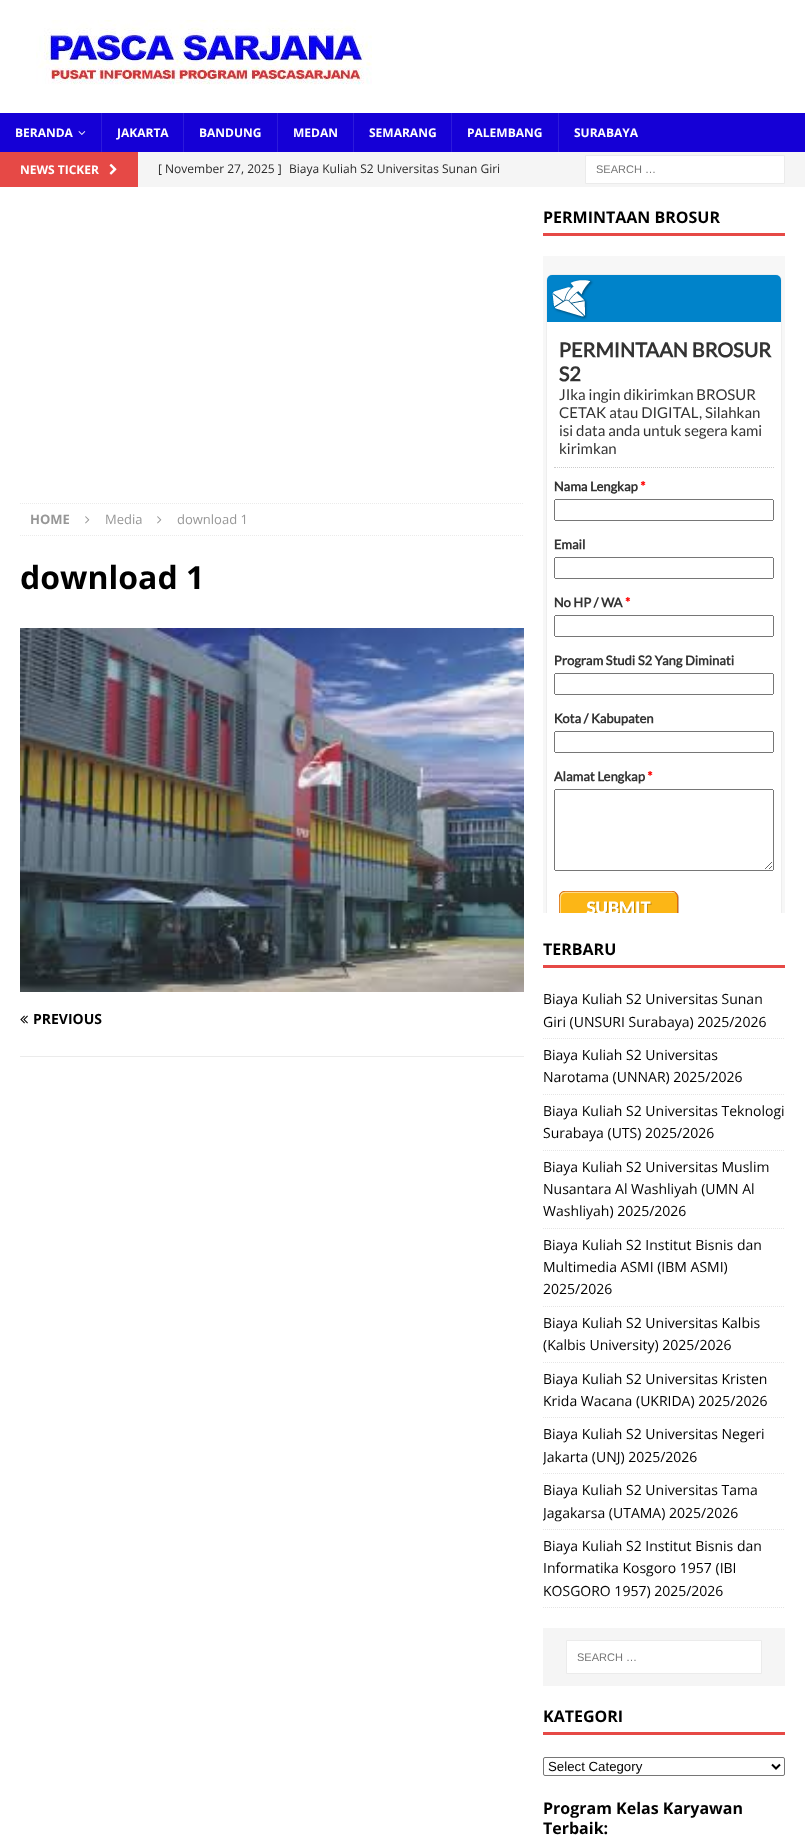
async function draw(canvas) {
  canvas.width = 805
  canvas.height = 1835
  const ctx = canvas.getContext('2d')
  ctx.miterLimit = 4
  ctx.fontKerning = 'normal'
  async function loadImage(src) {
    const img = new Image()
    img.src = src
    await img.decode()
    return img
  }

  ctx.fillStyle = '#fff'
  ctx.fillRect(0, 0, 805, 1835)
  ctx.drawImage(await loadImage('image0.png'), 36, 20, 336, 65)
  ctx.fillStyle = '#1500d6'
  ctx.fillRect(0, 113, 805, 39)
  ctx.font = 'bold 12px Open Sans'
  ctx.fillStyle = '#fff'
  ctx.fillText('BERANDA', 15, 137)
  ctx.drawImage(await loadImage('image1.png'), 78, 131, 8, 4)
  ctx.fillStyle = '#2c1ada'
  ctx.fillRect(101, 113, 1, 39)
  ctx.fillStyle = '#fff'
  ctx.fillText('JAKARTA', 117, 137)
  ctx.fillStyle = '#2c1ada'
  ctx.fillRect(183, 113, 1, 39)
  ctx.fillStyle = '#fff'
  ctx.fillText('BANDUNG', 199, 137)
  ctx.fillStyle = '#2c1ada'
  ctx.fillRect(277, 113, 1, 39)
  ctx.fillStyle = '#fff'
  ctx.fillText('MEDAN', 293, 137)
  ctx.fillStyle = '#2c1ada'
  ctx.fillRect(353, 113, 1, 39)
  ctx.fillStyle = '#fff'
  ctx.fillText('SEMARANG', 369, 137)
  ctx.fillStyle = '#2c1ada'
  ctx.fillRect(451, 113, 1, 39)
  ctx.fillStyle = '#fff'
  ctx.fillText('PALEMBANG', 467, 137)
  ctx.fillStyle = '#2c1ada'
  ctx.fillRect(558, 113, 1, 39)
  ctx.fillStyle = '#fff'
  ctx.fillText('SURABAYA', 574, 137)
  ctx.fillStyle = '#f5f5f5'
  ctx.fillRect(138, 152, 667, 35)
  ctx.fillStyle = '#e64946'
  ctx.fillRect(0, 152, 138, 35)
  ctx.fillStyle = '#fff'
  ctx.fillText('NEWS TICKER', 20, 174)
  ctx.drawImage(await loadImage('image2.png'), 109, 163, 8, 12)
  ctx.font = '12px Open Sans'
  ctx.fillStyle = '#2a2a2a'
  ctx.fillText('[ November 27, 2025 ]', 158, 173)
  ctx.fillText('Biaya Kuliah S2 Universitas Sunan Giri', 289, 173)
  ctx.fillStyle = '#fff'
  ctx.beginPath()
  ctx.rect(585.5, 155.5, 199, 28)
  ctx.fill()
  ctx.strokeStyle = '#ebebeb'
  ctx.stroke()
  ctx.font = '11px Liberation Sans'
  ctx.fillStyle = '#757575'
  ctx.fillText('SEARCH …', 596, 173)
  ctx.beginPath()
  ctx.moveTo(20, 503.5)
  ctx.lineTo(524, 503.5)
  ctx.setLineDash([1, 1])
  ctx.stroke()
  ctx.beginPath()
  ctx.moveTo(20, 535.5)
  ctx.lineTo(524, 535.5)
  ctx.stroke()
  ctx.font = 'bold 13px Open Sans'
  ctx.fillStyle = '#979797'
  ctx.fillText('HOME', 30, 524)
  ctx.drawImage(await loadImage('image3.png'), 85, 516, 5, 8)
  ctx.font = '13px Open Sans'
  ctx.fillText('Media', 105, 524)
  ctx.drawImage(await loadImage('image3.png'), 157, 516, 5, 8)
  ctx.fillText('download 1', 177, 524)
  ctx.font = 'bold 32px Open Sans'
  ctx.fillStyle = '#000'
  ctx.fillText('download 1', 20, 589)
  ctx.drawImage(await loadImage('image4.png'), 20, 628, 504, 364)
  ctx.fillStyle = '#ebebeb'
  ctx.fillRect(20, 1056, 504, 1)
  ctx.drawImage(await loadImage('image5.png'), 20, 1015, 8, 9)
  ctx.font = 'bold 14px Open Sans'
  ctx.fillStyle = '#000'
  ctx.fillText('PREVIOUS', 33, 1024)
  ctx.fillStyle = '#e64946'
  ctx.fillRect(543, 233, 242, 3)
  ctx.font = 'bold 16px Open Sans'
  ctx.fillStyle = '#000'
  ctx.fillText('PERMINTAAN BROSUR', 543, 223)
  ctx.drawImage(await loadImage('image6.png'), 543, 256, 242, 657)
  ctx.fillStyle = '#e64946'
  ctx.fillRect(543, 965, 242, 3)
  ctx.fillStyle = '#000'
  ctx.fillText('TERBARU', 543, 955)
  ctx.beginPath()
  ctx.moveTo(543, 1038.5)
  ctx.lineTo(785, 1038.5)
  ctx.strokeStyle = '#e5e5e5'
  ctx.stroke()
  ctx.font = '14px Open Sans'
  ctx.fillText('Biaya Kuliah S2 Universitas Sunan', 543, 1004)
  ctx.fillText('Giri (UNSURI Surabaya) 2025/2026', 543, 1027)
  ctx.beginPath()
  ctx.moveTo(543, 1094.5)
  ctx.lineTo(785, 1094.5)
  ctx.stroke()
  ctx.fillText('Biaya Kuliah S2 Universitas', 543, 1060)
  ctx.fillText('Narotama (UNNAR) 2025/2026', 543, 1082)
  ctx.beginPath()
  ctx.moveTo(543, 1150.5)
  ctx.lineTo(785, 1150.5)
  ctx.stroke()
  ctx.fillText('Biaya Kuliah S2 Universitas Teknologi', 543, 1116)
  ctx.fillText('Surabaya (UTS) 2025/2026', 543, 1138)
  ctx.beginPath()
  ctx.moveTo(543, 1228.5)
  ctx.lineTo(785, 1228.5)
  ctx.stroke()
  ctx.fillText('Biaya Kuliah S2 Universitas Muslim', 543, 1172)
  ctx.fillText('Nusantara Al Washliyah (UMN Al', 543, 1194)
  ctx.fillText('Washliyah) 2025/2026', 543, 1216)
  ctx.beginPath()
  ctx.moveTo(543, 1306.5)
  ctx.lineTo(785, 1306.5)
  ctx.stroke()
  ctx.fillText('Biaya Kuliah S2 Institut Bisnis dan', 543, 1250)
  ctx.fillText('Multimedia ASMI (IBM ASMI)', 543, 1272)
  ctx.fillText('2025/2026', 543, 1294)
  ctx.beginPath()
  ctx.moveTo(543, 1362.5)
  ctx.lineTo(785, 1362.5)
  ctx.stroke()
  ctx.fillText('Biaya Kuliah S2 Universitas Kalbis', 543, 1328)
  ctx.fillText('(Kalbis University) 2025/2026', 543, 1350)
  ctx.beginPath()
  ctx.moveTo(543, 1417.5)
  ctx.lineTo(785, 1417.5)
  ctx.stroke()
  ctx.fillText('Biaya Kuliah S2 Universitas Kristen', 543, 1384)
  ctx.fillText('Krida Wacana (UKRIDA) 2025/2026', 543, 1406)
  ctx.beginPath()
  ctx.moveTo(543, 1473.5)
  ctx.lineTo(785, 1473.5)
  ctx.stroke()
  ctx.fillText('Biaya Kuliah S2 Universitas Negeri', 543, 1439)
  ctx.save()
  ctx.beginPath()
  ctx.rect(543, 939, 242, 669)
  ctx.clip()
  ctx.fillText('Jakarta (UNJ) 2025/2026', 543, 1462)
  ctx.restore()
  ctx.beginPath()
  ctx.moveTo(543, 1529.5)
  ctx.lineTo(785, 1529.5)
  ctx.stroke()
  ctx.fillText('Biaya Kuliah S2 Universitas Tama', 543, 1495)
  ctx.save()
  ctx.beginPath()
  ctx.rect(543, 939, 242, 669)
  ctx.clip()
  ctx.fillText('Jagakarsa (UTAMA) 2025/2026', 543, 1518)
  ctx.restore()
  ctx.beginPath()
  ctx.moveTo(543, 1607.5)
  ctx.lineTo(785, 1607.5)
  ctx.stroke()
  ctx.fillText('Biaya Kuliah S2 Institut Bisnis dan', 543, 1551)
  ctx.fillText('Informatika Kosgoro 1957 (IBI', 543, 1573)
  ctx.fillText('KOSGORO 1957) 2025/2026', 543, 1596)
  ctx.fillStyle = '#f5f5f5'
  ctx.fillRect(543, 1628, 242, 58)
  ctx.fillStyle = '#fff'
  ctx.beginPath()
  ctx.rect(566.5, 1640.5, 195, 33)
  ctx.fill()
  ctx.strokeStyle = '#ebebeb'
  ctx.setLineDash([])
  ctx.stroke()
  ctx.font = '11px Liberation Sans'
  ctx.fillStyle = '#757575'
  ctx.fillText('SEARCH …', 577, 1661)
  ctx.fillStyle = '#e64946'
  ctx.fillRect(543, 1732, 242, 3)
  ctx.font = 'bold 16px Open Sans'
  ctx.fillStyle = '#000'
  ctx.fillText('KATEGORI', 543, 1722)
  ctx.beginPath()
  ctx.roundRect(543.5, 1757.5, 241, 18, 1.5)
  ctx.strokeStyle = '#767676'
  ctx.stroke()
  ctx.beginPath()
  ctx.moveTo(772, 1764.5)
  ctx.lineTo(776, 1768.5)
  ctx.lineTo(780, 1764.5)
  ctx.strokeStyle = '#000'
  ctx.lineWidth = 2
  ctx.stroke()
  ctx.font = '13.25px Liberation Sans'
  ctx.fillText('Select Category', 548, 1771)
  ctx.font = 'bold 16px Open Sans'
  ctx.fillText('Program Kelas Karyawan', 543, 1814)
  ctx.fillText('Terbaik:', 543, 1834)
}

draw(document.querySelector('canvas'))
